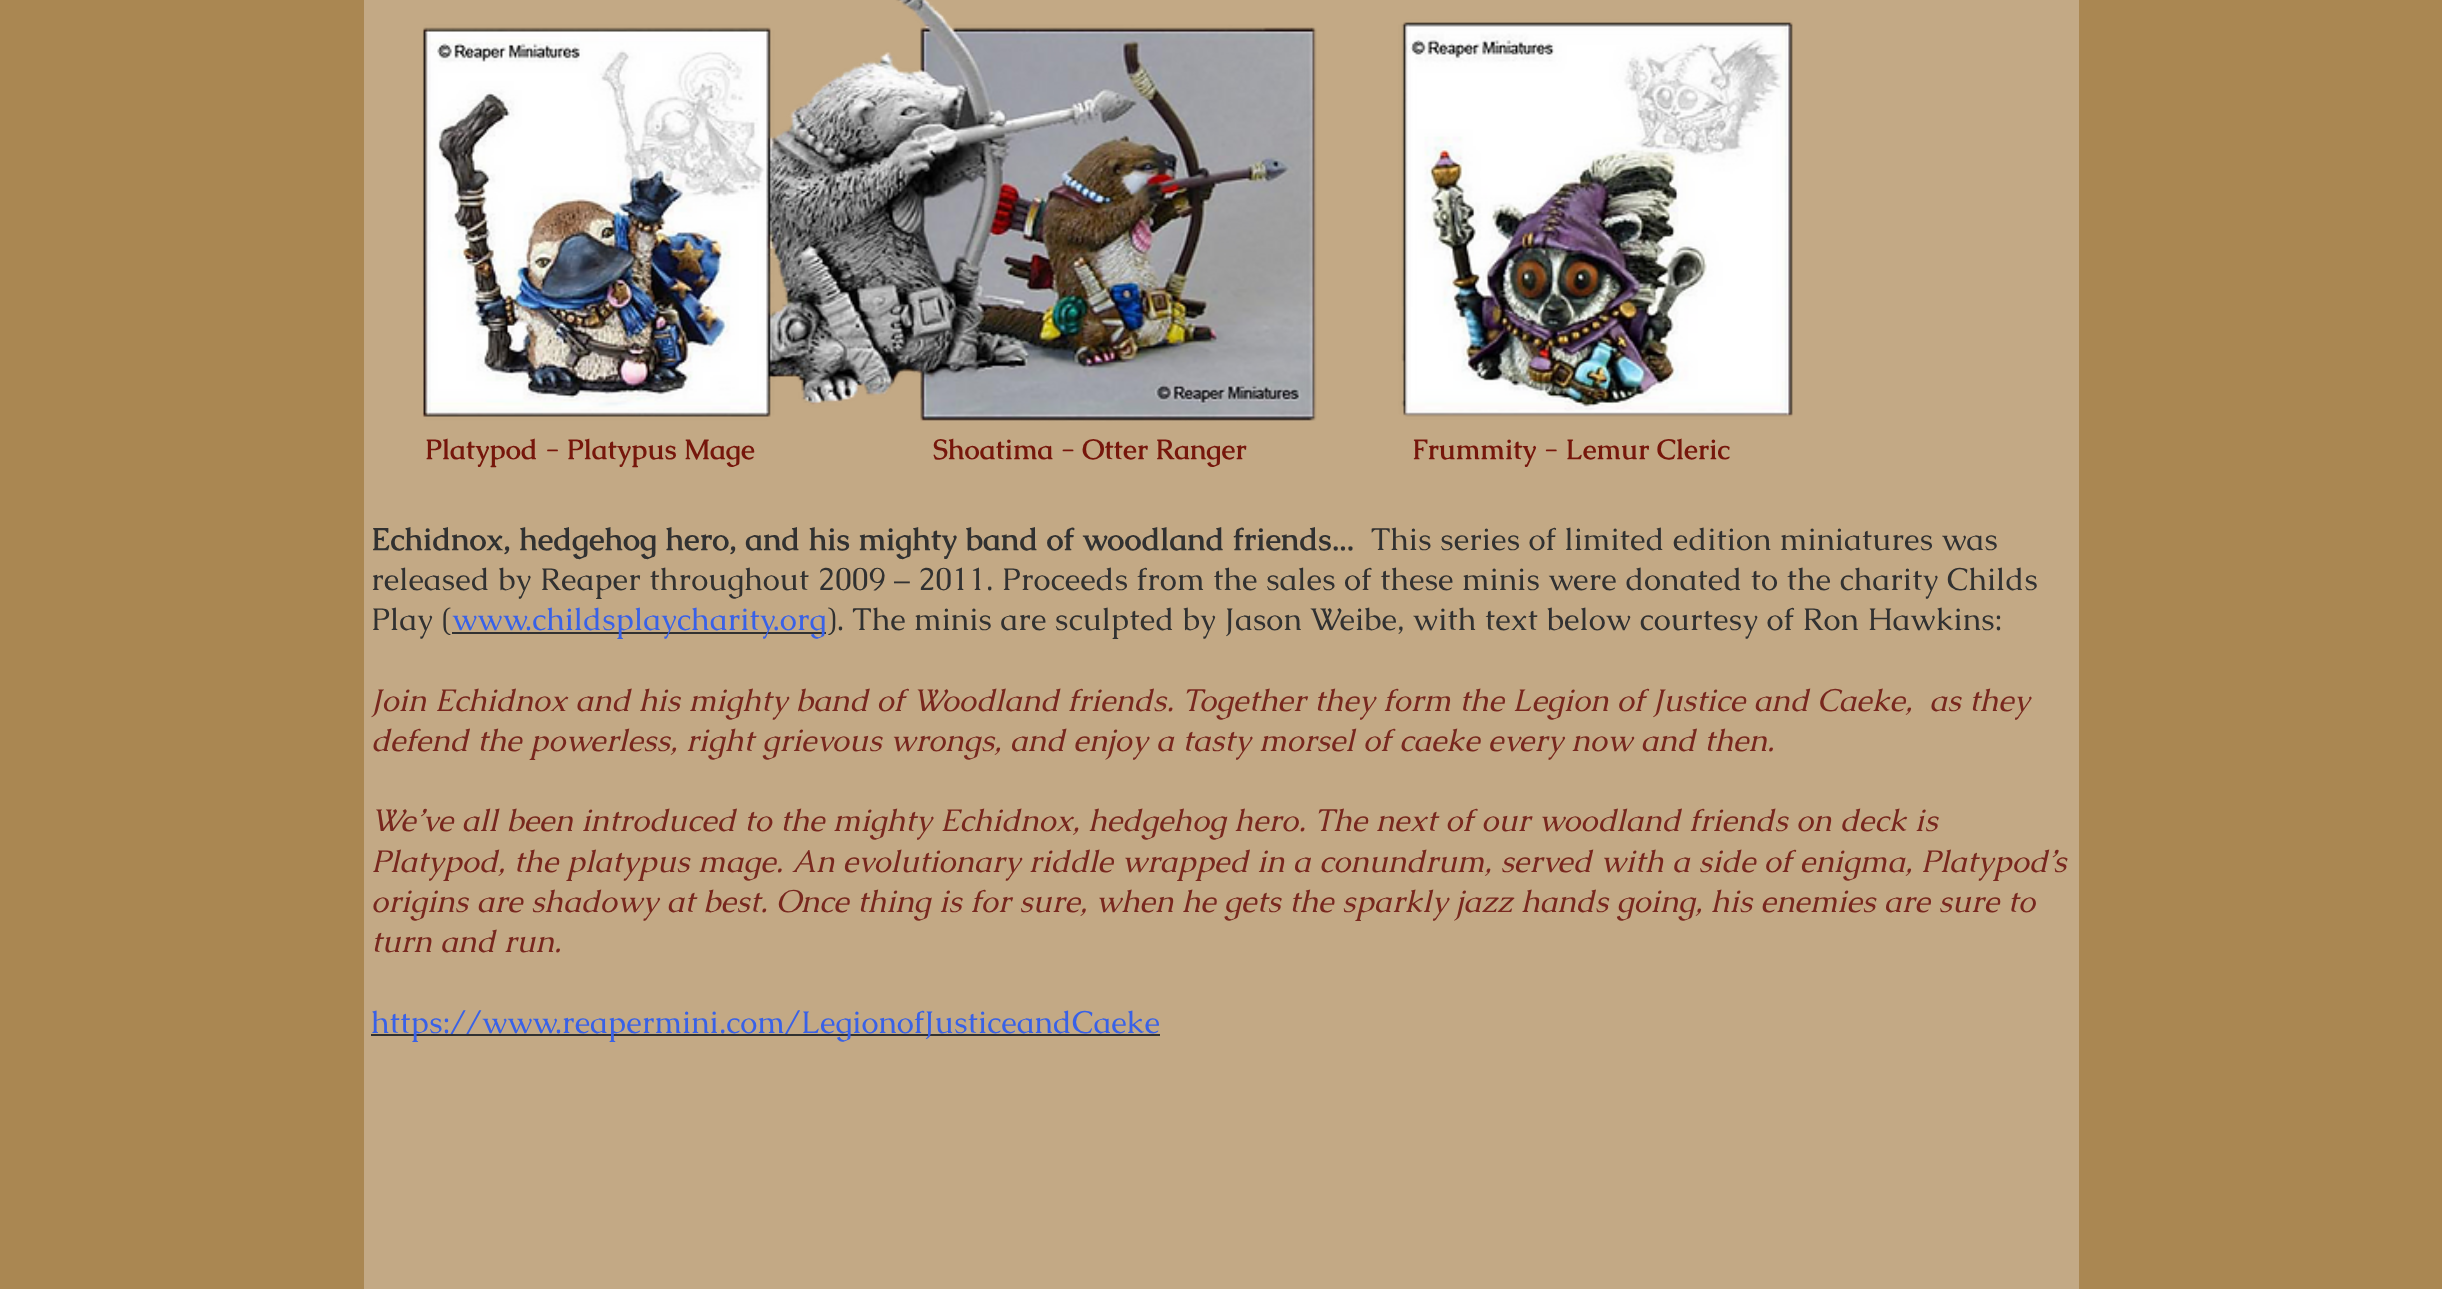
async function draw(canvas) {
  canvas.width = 2442
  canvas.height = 1289
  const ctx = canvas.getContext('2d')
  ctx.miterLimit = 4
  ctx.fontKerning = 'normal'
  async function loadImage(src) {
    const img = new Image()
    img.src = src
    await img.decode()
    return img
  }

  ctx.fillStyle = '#aa8752'
  ctx.fillRect(0, 0, 2442, 1289)
  ctx.fillStyle = '#c3a985'
  ctx.fillRect(364, 0, 1715, 1289)
  ctx.drawImage(await loadImage('image0.png'), 422, 0, 1371, 422)
  ctx.font = 'bold 28px Caudex'
  ctx.fillStyle = '#76160b'
  ctx.fillText('Platypod - Platypus Mage', 425, 459)
  ctx.fillText('Shoatima - Otter Ranger                      Frummity - Lemur Cleric', 933, 459)
  ctx.font = 'bold 31.5px Caudex'
  ctx.fillStyle = '#313131'
  ctx.fillText('Echidnox, hedgehog hero, and his mighty band of woodland friends...', 371, 550)
  ctx.font = '31.5px Caudex'
  ctx.fillText('This series of limited edition miniatures was', 1371, 550)
  ctx.fillText('released by Reaper throughout 2009 – 2011. Proceeds from the sales of these minis were donated to the charity Childs', 371, 590)
  ctx.fillText('Play (', 371, 630)
  ctx.fillRect(452, 632, 374, 2)
  ctx.fillStyle = '#3861e8'
  ctx.fillText('www.childsplaycharity.org', 452, 630)
  ctx.fillStyle = '#313131'
  ctx.fillText('). The minis are sculpted by Jason Weibe, with text below courtesy of Ron Hawkins:', 826, 630)
  ctx.font = 'italic 31.5px Caudex'
  ctx.fillStyle = '#78271e'
  ctx.fillText('Join Echidnox and his mighty band of Woodland friends. Together they form the Legion of Justice and Caeke,  as they', 371, 711)
  ctx.fillText('defend the powerless, right grievous wrongs, and enjoy a tasty morsel of caeke every now and then.', 371, 751)
  ctx.fillText('We’ve all been introduced to the mighty Echidnox, hedgehog hero. The next of our woodland friends on deck is', 371, 831)
  ctx.fillText('Platypod, the platypus mage. An evolutionary riddle wrapped in a conundrum, served with a side of enigma, Platypod’s', 371, 872)
  ctx.fillText('origins are shadowy at best. Once thing is for sure, when he gets the sparkly jazz hands going, his enemies are sure to', 371, 912)
  ctx.fillText('turn and run.', 371, 952)
  ctx.fillStyle = '#313131'
  ctx.fillRect(371, 1034, 789, 2)
  ctx.font = '31.5px Caudex'
  ctx.fillStyle = '#3861e8'
  ctx.fillText('https://www.reapermini.com/LegionofJusticeandCaeke', 371, 1033)
}

draw(document.querySelector('canvas'))
